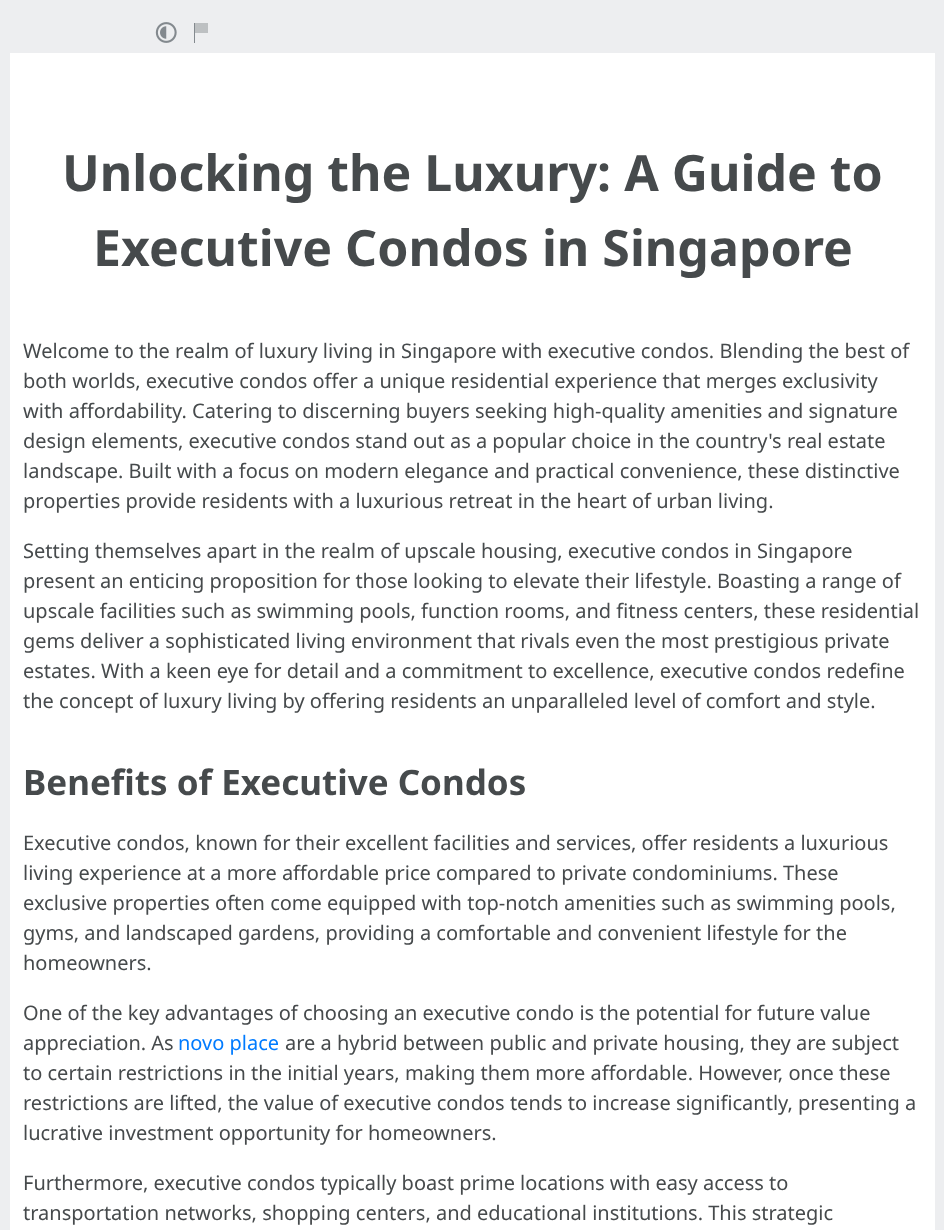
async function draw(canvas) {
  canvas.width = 944
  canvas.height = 1230
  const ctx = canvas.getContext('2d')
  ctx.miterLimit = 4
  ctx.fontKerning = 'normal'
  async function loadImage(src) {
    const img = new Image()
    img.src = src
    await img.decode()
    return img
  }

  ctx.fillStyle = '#edeef0'
  ctx.fillRect(0, 0, 944, 1230)
  ctx.drawImage(await loadImage('image0.png'), 155, 22, 22, 21)
  ctx.fillStyle = '#83898e'
  ctx.fillRect(194, 23, 1, 20)
  ctx.fillStyle = '#bdc0c2'
  ctx.fillRect(195, 23, 13, 10)
  ctx.fillStyle = '#fff'
  ctx.fillRect(10, 53, 925, 1177)
  ctx.font = 'bold 50px Noto Sans'
  ctx.fillStyle = '#464a4c'
  ctx.fillText('Unlocking the Luxury: A Guide to', 62, 191)
  ctx.fillText('Executive Condos in Singapore', 93, 266)
  ctx.font = '20px Noto Sans'
  ctx.fillText('Welcome to the realm of luxury living in Singapore with executive condos. Blending the best of', 23, 358)
  ctx.fillText('both worlds, executive condos offer a unique residential experience that merges exclusivity', 23, 388)
  ctx.fillText('with affordability. Catering to discerning buyers seeking high-quality amenities and signature', 23, 418)
  ctx.fillText('design elements, executive condos stand out as a popular choice in the country\'s real estate', 23, 448)
  ctx.fillText('landscape. Built with a focus on modern elegance and practical convenience, these distinctive', 23, 478)
  ctx.fillText('properties provide residents with a luxurious retreat in the heart of urban living.', 23, 508)
  ctx.fillText('Setting themselves apart in the realm of upscale housing, executive condos in Singapore', 23, 558)
  ctx.fillText('present an enticing proposition for those looking to elevate their lifestyle. Boasting a range of', 23, 588)
  ctx.fillText('upscale facilities such as swimming pools, function rooms, and fitness centers, these residential', 23, 618)
  ctx.fillText('gems deliver a sophisticated living environment that rivals even the most prestigious private', 23, 648)
  ctx.fillText('estates. With a keen eye for detail and a commitment to excellence, executive condos redefine', 23, 678)
  ctx.fillText('the concept of luxury living by offering residents an unparalleled level of comfort and style.', 23, 708)
  ctx.font = 'bold 35px Noto Sans'
  ctx.fillText('Benefits of Executive Condos', 23, 795)
  ctx.font = '20px Noto Sans'
  ctx.fillText('Executive condos, known for their excellent facilities and services, offer residents a luxurious', 23, 850)
  ctx.fillText('living experience at a more affordable price compared to private condominiums. These', 23, 880)
  ctx.fillText('exclusive properties often come equipped with top-notch amenities such as swimming pools,', 23, 910)
  ctx.fillText('gyms, and landscaped gardens, providing a comfortable and convenient lifestyle for the', 23, 940)
  ctx.fillText('homeowners.', 23, 970)
  ctx.fillText('One of the key advantages of choosing an executive condo is the potential for future value', 23, 1020)
  ctx.fillText('appreciation. As', 23, 1050)
  ctx.fillStyle = '#007bff'
  ctx.fillText('novo place', 178, 1050)
  ctx.fillStyle = '#464a4c'
  ctx.fillText('are a hybrid between public and private housing, they are subject', 285, 1050)
  ctx.fillText('to certain restrictions in the initial years, making them more affordable. However, once these', 23, 1080)
  ctx.fillText('restrictions are lifted, the value of executive condos tends to increase significantly, presenting a', 23, 1110)
  ctx.fillText('lucrative investment opportunity for homeowners.', 23, 1140)
  ctx.fillText('Furthermore, executive condos typically boast prime locations with easy access to', 23, 1190)
  ctx.fillText('transportation networks, shopping centers, and educational institutions. This strategic', 23, 1220)
}

draw(document.querySelector('canvas'))
